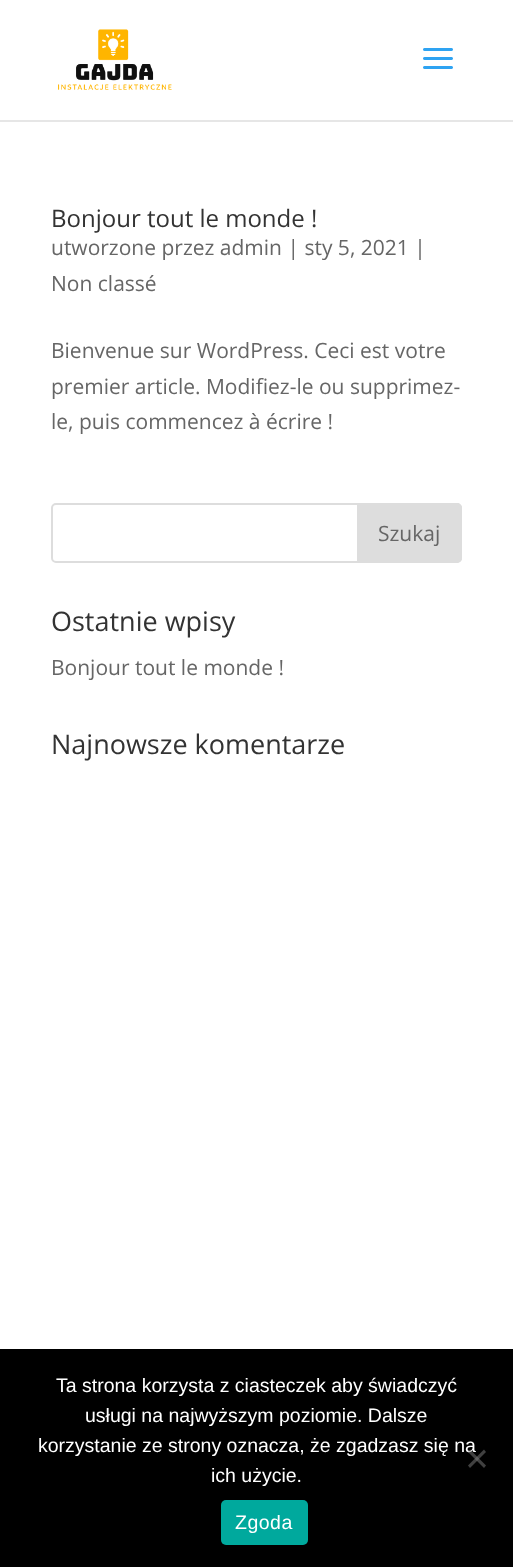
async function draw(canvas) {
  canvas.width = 513
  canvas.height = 1567
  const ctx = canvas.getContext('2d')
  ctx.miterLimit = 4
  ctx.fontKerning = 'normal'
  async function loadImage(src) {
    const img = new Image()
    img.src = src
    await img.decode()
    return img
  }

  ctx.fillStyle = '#fff'
  ctx.fillRect(0, 0, 513, 1567)
  ctx.fillStyle = '#e6e6e6'
  ctx.fillRect(0, 120, 513, 2)
  ctx.drawImage(await loadImage('image0.png'), 58, 29, 114, 61)
  ctx.drawImage(await loadImage('image1.png'), 423, 48, 30, 21)
  ctx.font = '24px Open Sans'
  ctx.fillStyle = '#333'
  ctx.fillText('Bonjour tout le monde !', 51, 227)
  ctx.font = '21px Open Sans'
  ctx.fillStyle = '#666'
  ctx.fillText('utworzone przez admin | sty 5, 2021 |', 51, 255)
  ctx.fillText('Non classé', 51, 291)
  ctx.fillText('Bienvenue sur WordPress. Ceci est votre', 51, 358)
  ctx.fillText('premier article. Modifiez-le ou supprimez-', 51, 394)
  ctx.fillText('le, puis commencez à écrire !', 51, 429)
  ctx.beginPath()
  ctx.roundRect(52, 504, 409, 58, 4)
  ctx.strokeStyle = '#ddd'
  ctx.lineWidth = 2
  ctx.stroke()
  ctx.fillStyle = '#ddd'
  ctx.beginPath()
  ctx.roundRect(358, 504, 103, 58, [0, 4, 4, 0])
  ctx.fill()
  ctx.stroke()
  ctx.fillStyle = '#666'
  ctx.fillText('Szukaj', 378, 541)
  ctx.font = '27px Open Sans'
  ctx.fillStyle = '#333'
  ctx.fillText('Ostatnie wpisy', 51, 631)
  ctx.font = '21px Open Sans'
  ctx.fillStyle = '#666'
  ctx.fillText('Bonjour tout le monde !', 51, 675)
  ctx.font = '27px Open Sans'
  ctx.fillStyle = '#333'
  ctx.fillText('Najnowsze komentarze', 51, 754)
  ctx.fillStyle = '#000'
  ctx.fillRect(0, 1349, 513, 218)
  ctx.font = '19.5px Liberation Sans'
  ctx.fillStyle = '#fff'
  ctx.fillText('Ta strona korzysta z ciasteczek aby świadczyć', 56, 1392)
  ctx.fillText('usługi na najwyższym poziomie. Dalsze', 85, 1422)
  ctx.fillText('korzystanie ze strony oznacza, że zgadzasz się na', 38, 1452)
  ctx.fillText('ich użycie.', 211, 1482)
  ctx.fillStyle = '#404040'
  ctx.beginPath()
  ctx.moveTo(484, 1449.5)
  ctx.lineTo(486, 1452)
  ctx.lineTo(470, 1468)
  ctx.lineTo(468, 1465.5)
  ctx.closePath()
  ctx.fill()
  ctx.fillStyle = '#80808080'
  ctx.beginPath()
  ctx.moveTo(468, 1452)
  ctx.lineTo(470, 1449.5)
  ctx.lineTo(486, 1465.5)
  ctx.lineTo(484, 1468)
  ctx.closePath()
  ctx.fill()
  ctx.fillStyle = '#00a99d'
  ctx.beginPath()
  ctx.roundRect(221, 1500, 87, 45, 5)
  ctx.fill()
  ctx.letterSpacing = '0.5px'
  ctx.fillStyle = '#fff'
  ctx.fillText('Zgoda', 235, 1529)
}

draw(document.querySelector('canvas'))
